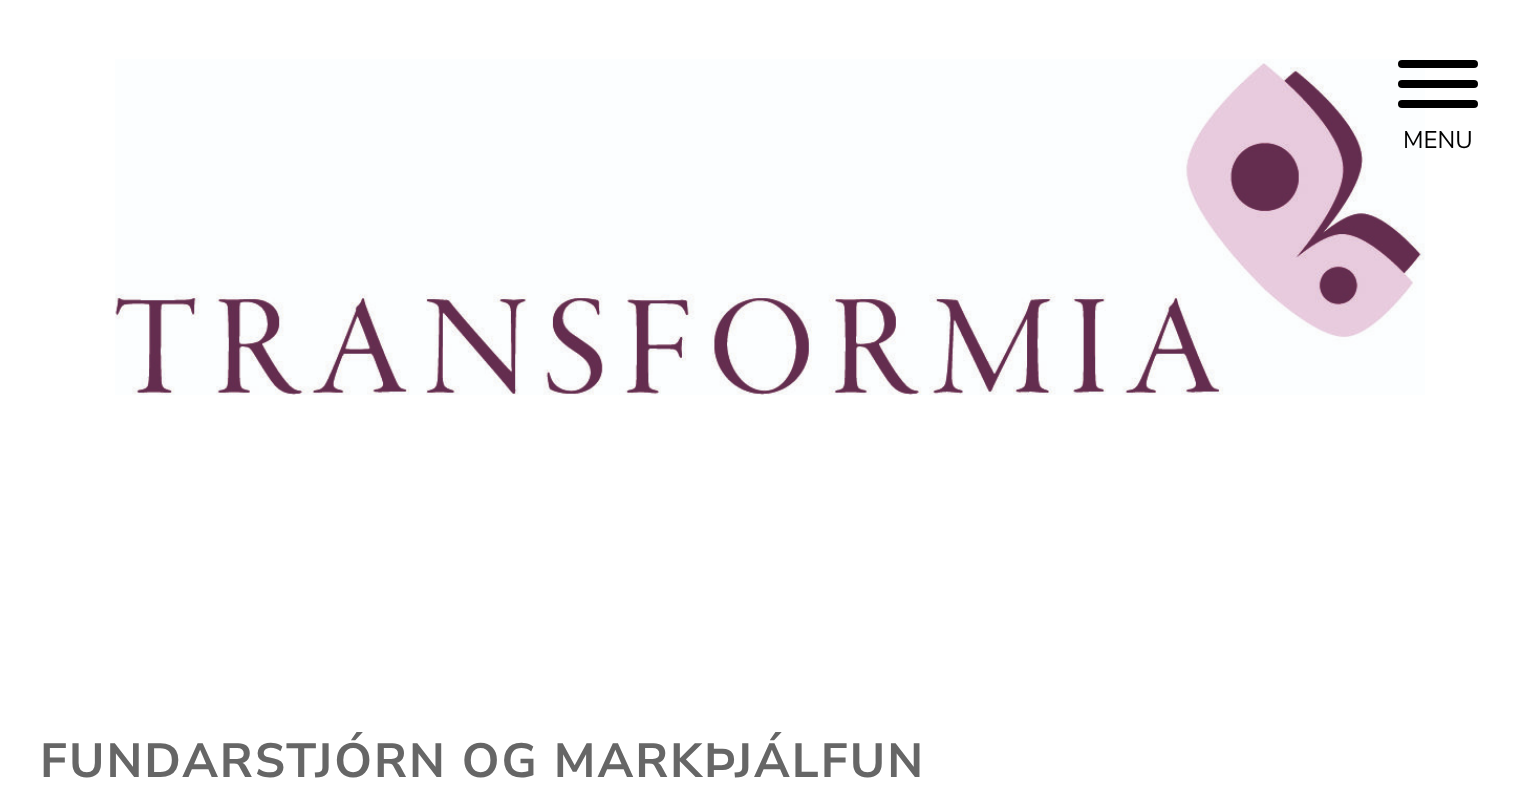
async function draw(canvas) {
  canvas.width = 1517
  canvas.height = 799
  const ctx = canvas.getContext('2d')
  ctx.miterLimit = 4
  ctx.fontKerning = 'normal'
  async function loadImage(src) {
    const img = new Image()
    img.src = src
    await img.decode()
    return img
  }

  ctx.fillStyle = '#fff'
  ctx.fillRect(0, 0, 1517, 799)
  ctx.drawImage(await loadImage('image0.png'), 115, 59, 1310, 336)
  ctx.fillStyle = '#000'
  ctx.beginPath()
  ctx.roundRect(1398, 80, 80, 8, 4)
  ctx.fill()
  ctx.beginPath()
  ctx.roundRect(1398, 60, 80, 8, 4)
  ctx.fill()
  ctx.beginPath()
  ctx.roundRect(1398, 100, 80, 8, 4)
  ctx.fill()
  ctx.font = '24px Nunito Sans'
  ctx.fillText('MENU', 1403, 148)
  ctx.letterSpacing = '2px'
  ctx.font = 'bold 48px Nunito Sans'
  ctx.fillStyle = '#666'
  ctx.fillText('FUNDARSTJÓRN OG MARKÞJÁLFUN', 40, 777)
}

draw(document.querySelector('canvas'))
